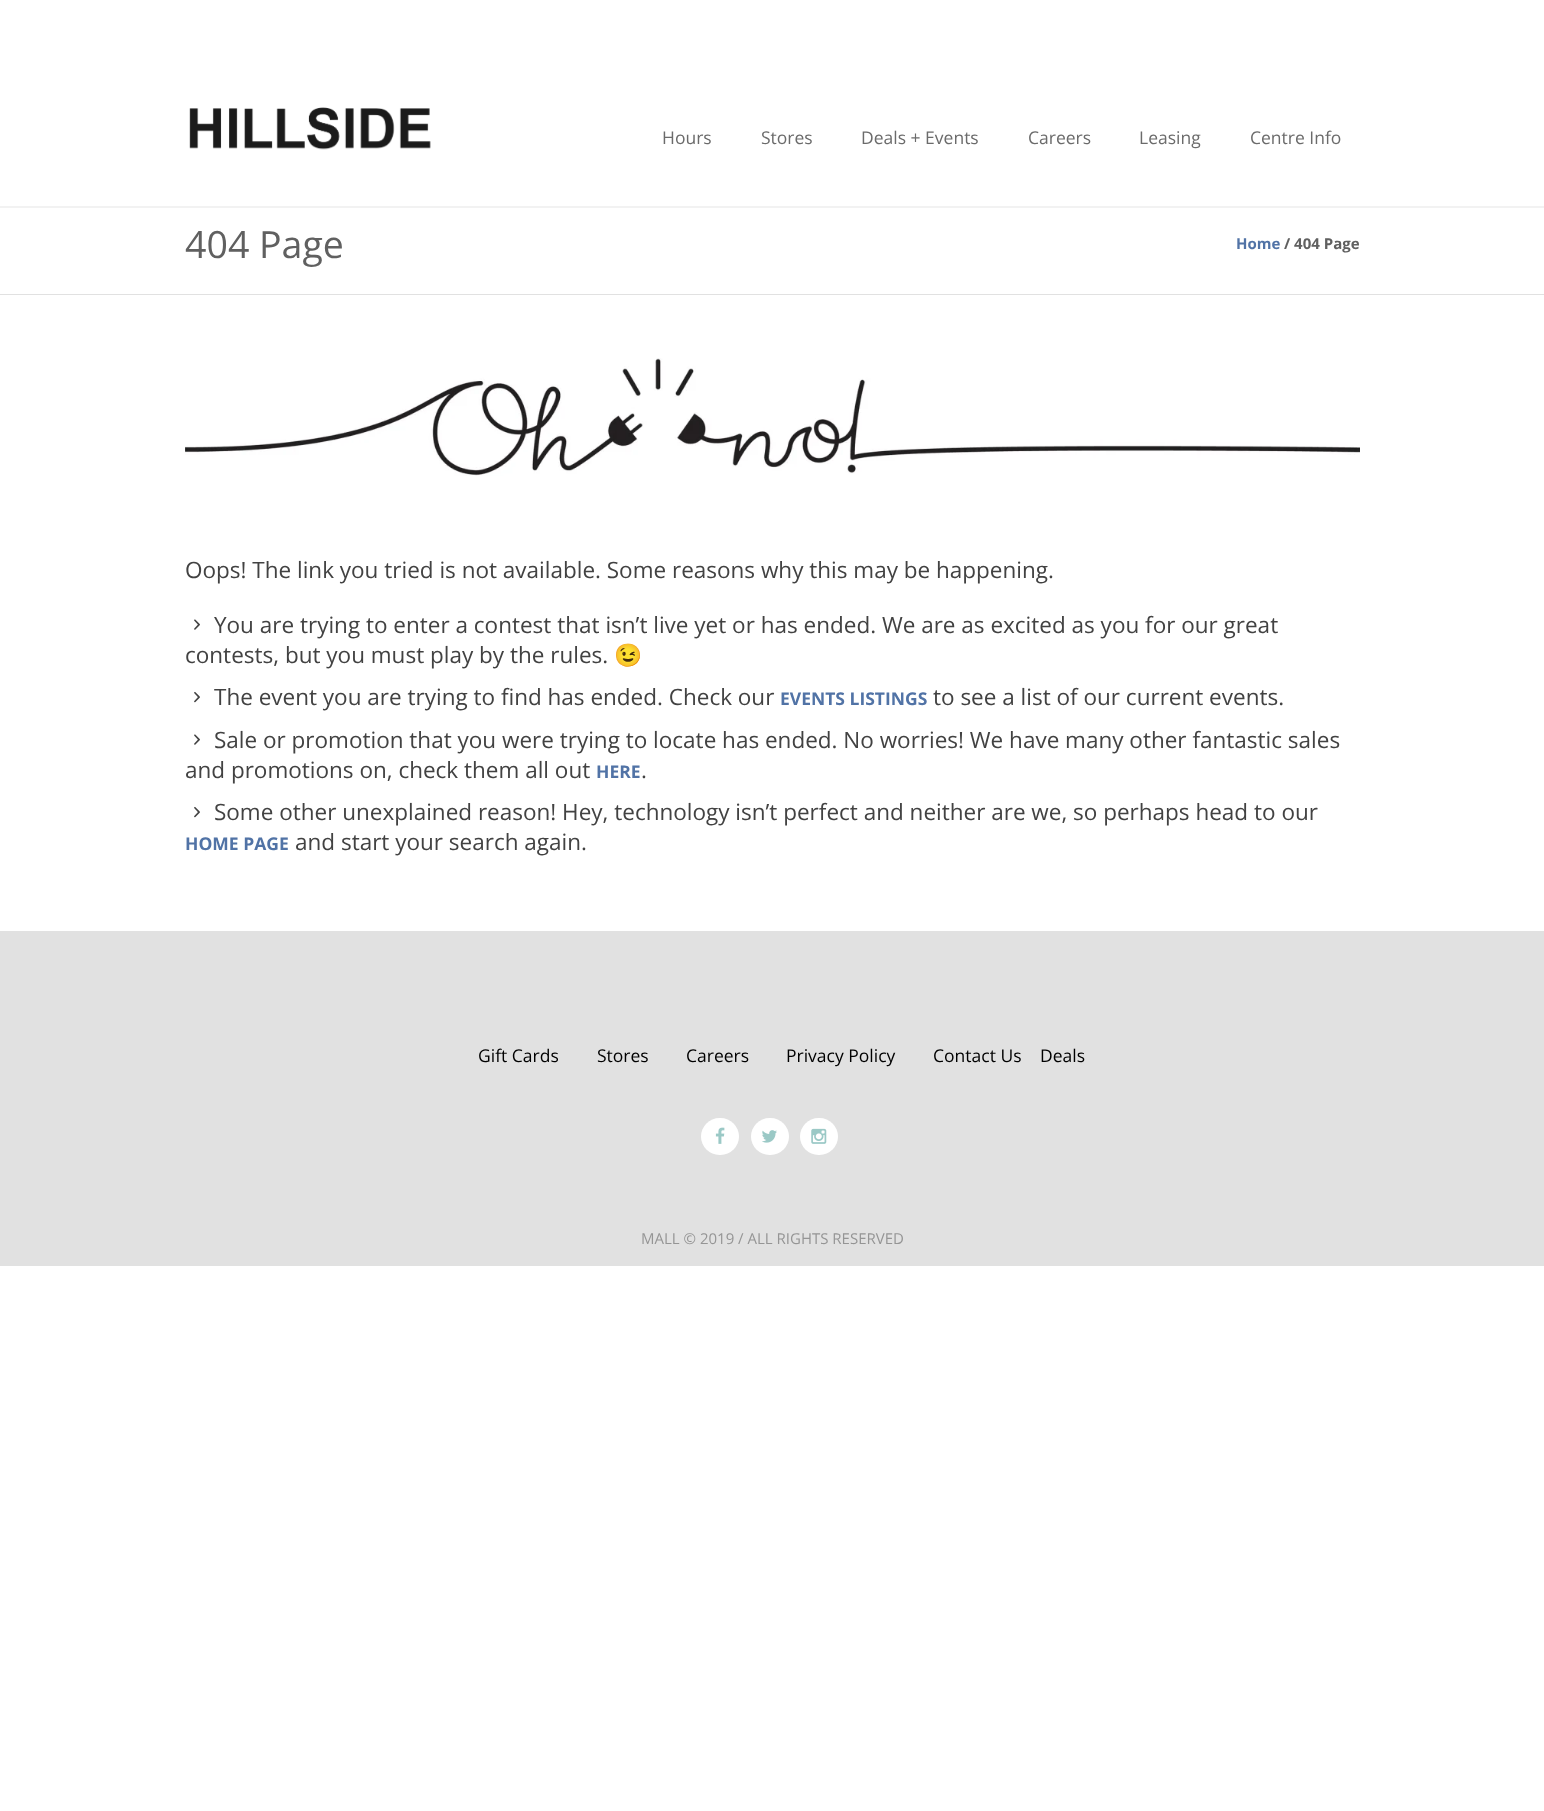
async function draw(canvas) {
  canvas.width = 1544
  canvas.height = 1811
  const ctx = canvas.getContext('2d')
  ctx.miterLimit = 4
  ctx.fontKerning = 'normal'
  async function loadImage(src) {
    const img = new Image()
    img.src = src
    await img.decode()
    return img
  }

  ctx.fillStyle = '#fff'
  ctx.fillRect(0, 0, 1544, 1811)
  ctx.save()
  ctx.beginPath()
  ctx.rect(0, 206, 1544, 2)
  ctx.clip()
  ctx.fillStyle = '#0000000d'
  ctx.filter = 'blur(0.5px)'
  ctx.beginPath()
  ctx.rect(0, 1, 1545, 207)
  ctx.fill()
  ctx.filter = 'none'
  ctx.restore()
  ctx.drawImage(await loadImage('image0.png'), 189, 107, 242, 43)
  ctx.font = '17.5px Open Sans'
  ctx.fillStyle = '#6b6b6b'
  ctx.fillText('Hours', 662, 144)
  ctx.fillText('Stores', 761, 144)
  ctx.fillText('Deals + Events', 861, 144)
  ctx.fillText('Careers', 1028, 144)
  ctx.fillText('Leasing', 1139, 144)
  ctx.fillText('Centre Info', 1250, 144)
  ctx.fillStyle = '#e1e1e1'
  ctx.fillRect(0, 294, 1544, 1)
  ctx.font = '37.5px Open Sans'
  ctx.fillStyle = '#606060'
  ctx.fillText('404 Page', 185, 258)
  ctx.font = 'bold 15px Open Sans'
  ctx.fillStyle = '#5173a6'
  ctx.fillText('Home', 1236, 249)
  ctx.fillStyle = '#606060'
  ctx.fillText('/ 404 Page', 1284, 249)
  ctx.drawImage(await loadImage('image1.png'), 185, 358, 1175, 118)
  ctx.font = '22.5px Open Sans'
  ctx.fillStyle = '#424242'
  ctx.fillText('Oops! The link you tried is not available. Some reasons why this may be happening.', 185, 578)
  ctx.drawImage(await loadImage('image2.png'), 194, 619, 6, 11)
  ctx.fillText('You are trying to enter a contest that isn’t live yet or has ended. We are as excited as you for our great', 214, 633)
  ctx.fillText('contests, but you must play by the rules.', 185, 663)
  ctx.font = '22.5px Noto Color Emoji'
  ctx.fillText('😉', 614, 663)
  ctx.drawImage(await loadImage('image3.png'), 194, 691, 6, 12)
  ctx.font = '22.5px Open Sans'
  ctx.fillText('The event you are trying to find has ended. Check our', 214, 705)
  ctx.font = 'bold 17.5px Open Sans'
  ctx.fillStyle = '#5173a6'
  ctx.fillText('EVENTS LISTINGS', 780, 705)
  ctx.font = '22.5px Open Sans'
  ctx.fillStyle = '#424242'
  ctx.fillText('to see a list of our current events.', 933, 705)
  ctx.drawImage(await loadImage('image2.png'), 194, 734, 6, 11)
  ctx.fillText('Sale or promotion that you were trying to locate has ended. No worries! We have many other fantastic sales', 214, 748)
  ctx.fillText('and promotions on, check them all out', 185, 778)
  ctx.font = 'bold 17.5px Open Sans'
  ctx.fillStyle = '#5173a6'
  ctx.fillText('HERE', 596, 778)
  ctx.font = '22.5px Open Sans'
  ctx.fillStyle = '#424242'
  ctx.fillText('.', 641, 778)
  ctx.drawImage(await loadImage('image3.png'), 194, 806, 6, 12)
  ctx.fillText('Some other unexplained reason! Hey, technology isn’t perfect and neither are we, so perhaps head to our', 214, 820)
  ctx.font = 'bold 17.5px Open Sans'
  ctx.fillStyle = '#5173a6'
  ctx.fillText('HOME PAGE', 185, 850)
  ctx.font = '22.5px Open Sans'
  ctx.fillStyle = '#424242'
  ctx.fillText('and start your search again.', 295, 850)
  ctx.fillStyle = '#e1e1e1'
  ctx.fillRect(0, 931, 1544, 335)
  ctx.font = '17.5px Open Sans'
  ctx.fillStyle = '#000'
  ctx.fillText('Gift Cards', 478, 1062)
  ctx.fillText('Stores', 597, 1062)
  ctx.fillText('Careers', 686, 1062)
  ctx.fillText('Privacy Policy', 786, 1062)
  ctx.fillText('Contact Us', 933, 1062)
  ctx.fillText('Deals', 1040, 1062)
  ctx.fillStyle = '#fff'
  ctx.beginPath()
  ctx.roundRect(701, 1118, 38, 37, 18.5)
  ctx.fill()
  ctx.drawImage(await loadImage('image4.png'), 715, 1127, 10, 17)
  ctx.beginPath()
  ctx.roundRect(751, 1118, 38, 37, 18.5)
  ctx.fill()
  ctx.drawImage(await loadImage('image5.png'), 762, 1130, 15, 13)
  ctx.beginPath()
  ctx.roundRect(800, 1118, 38, 37, 18.5)
  ctx.fill()
  ctx.drawImage(await loadImage('image6.png'), 811, 1128, 16, 16)
  ctx.font = '15px Open Sans'
  ctx.fillStyle = '#959595'
  ctx.fillText('MALL © 2019 / ALL RIGHTS RESERVED', 641, 1244)
}

draw(document.querySelector('canvas'))
